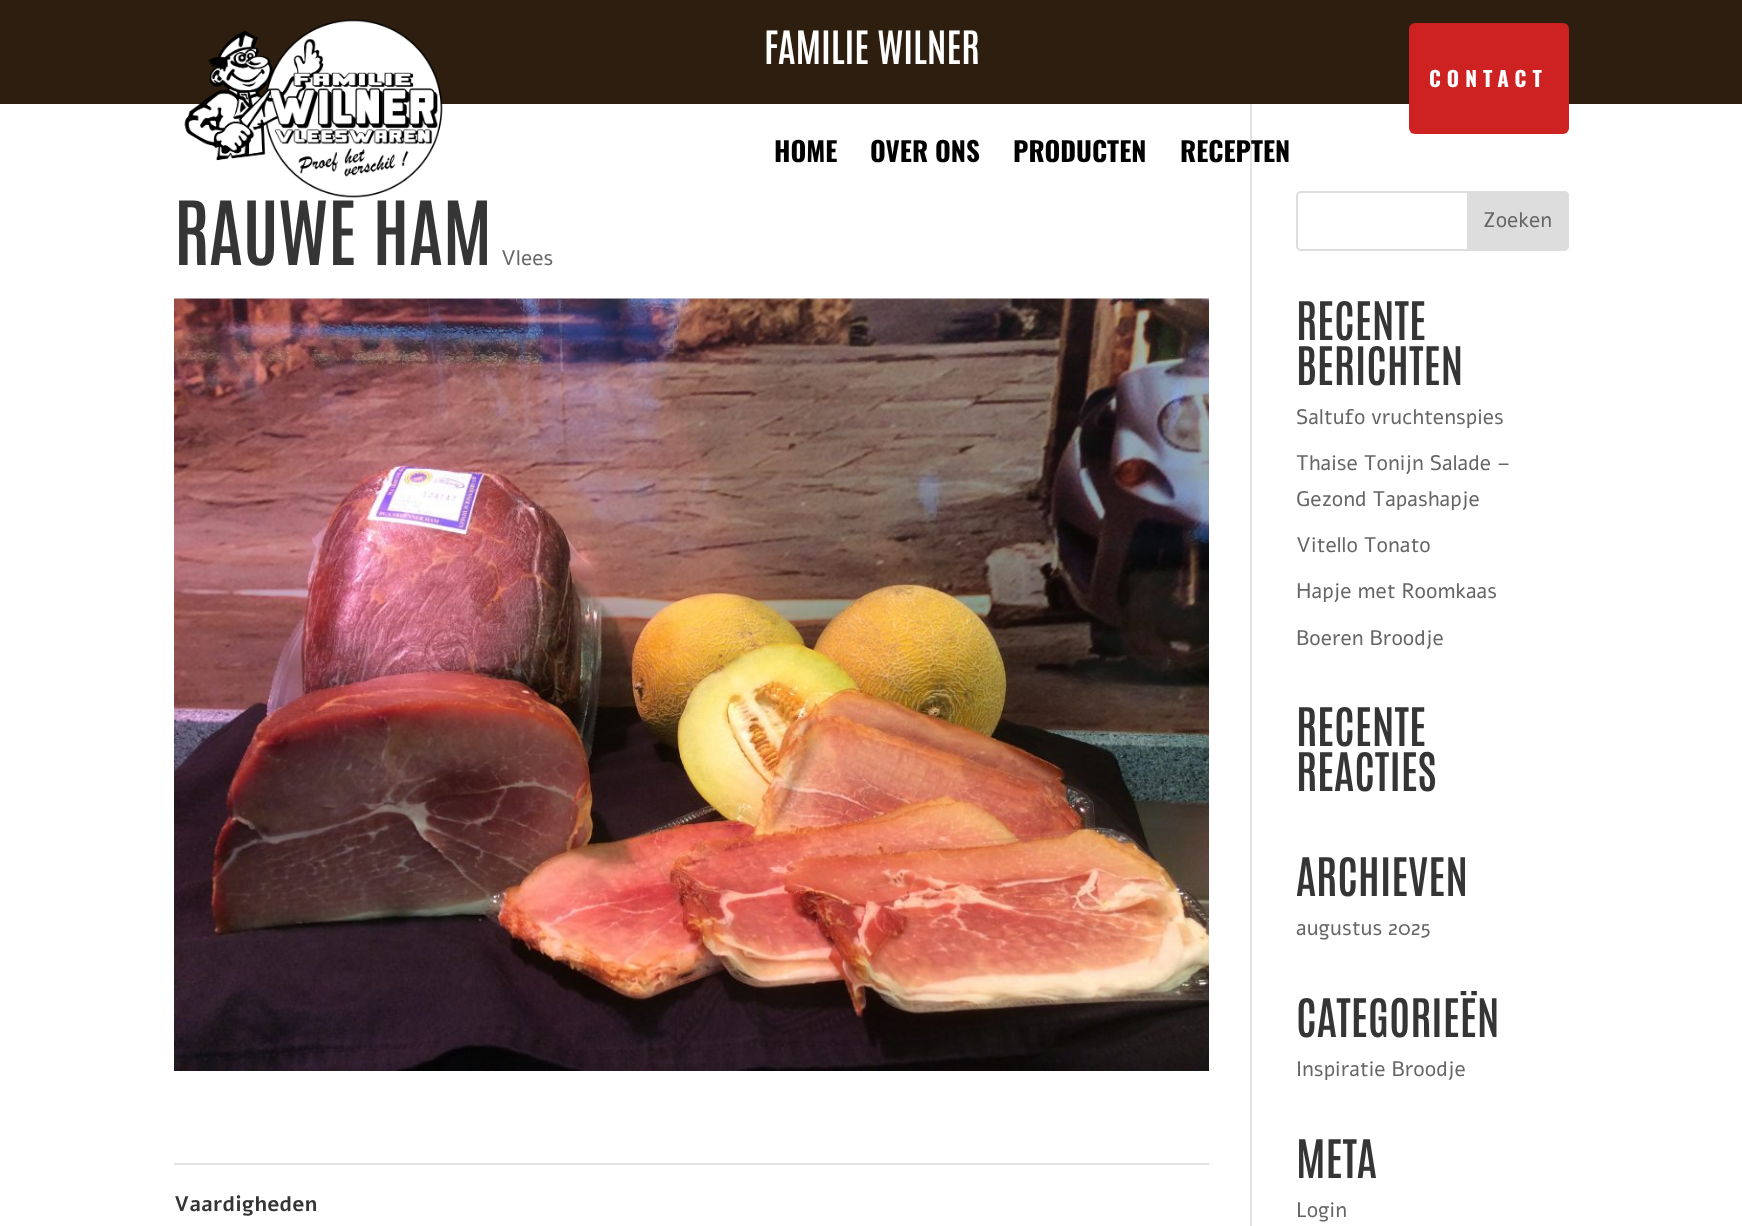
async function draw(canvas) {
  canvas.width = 1742
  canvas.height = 1226
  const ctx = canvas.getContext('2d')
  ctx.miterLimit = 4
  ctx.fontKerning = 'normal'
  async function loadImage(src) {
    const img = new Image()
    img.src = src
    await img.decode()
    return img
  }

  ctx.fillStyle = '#fff'
  ctx.fillRect(0, 0, 1742, 1226)
  ctx.fillStyle = '#2e1e0f'
  ctx.fillRect(0, 0, 1742, 104)
  ctx.font = '600 39px Antonio'
  ctx.fillStyle = '#fff'
  ctx.fillText('FAMILIE WILNER', 764, 64)
  ctx.drawImage(await loadImage('image0.png'), 184, 19, 259, 179)
  ctx.fillStyle = '#ce2121'
  ctx.beginPath()
  ctx.roundRect(1409, 23, 160, 111, 6)
  ctx.fill()
  ctx.letterSpacing = '6px'
  ctx.font = 'bold 21px Oswald'
  ctx.fillStyle = '#fff'
  ctx.fillText('CONTACT', 1429, 87)
  ctx.letterSpacing = '0px'
  ctx.font = 'bold 27px Oswald'
  ctx.fillStyle = '#000'
  ctx.fillText('HOME', 774, 162)
  ctx.fillText('OVER ONS', 870, 162)
  ctx.fillText('PRODUCTEN', 1013, 162)
  ctx.fillStyle = '#e2e2e2'
  ctx.fillRect(1250, 104, 2, 1122)
  ctx.fillStyle = '#000'
  ctx.fillText('RECEPTEN', 1180, 162)
  ctx.font = '600 75px Antonio'
  ctx.fillStyle = '#353535'
  ctx.fillText('RAUWE HAM', 174, 265)
  ctx.font = '21px Alef'
  ctx.fillStyle = '#666'
  ctx.fillText('Vlees', 501, 265)
  ctx.drawImage(await loadImage('image1.png'), 174, 298, 1035, 773)
  ctx.fillStyle = '#e2e2e2'
  ctx.fillRect(174, 1163, 1035, 2)
  ctx.font = 'bold 21px Alef'
  ctx.fillStyle = '#353535'
  ctx.fillText('Vaardigheden', 174, 1211)
  ctx.beginPath()
  ctx.roundRect(1297, 192, 271, 58, 4)
  ctx.strokeStyle = '#ddd'
  ctx.lineWidth = 2
  ctx.stroke()
  ctx.fillStyle = '#ddd'
  ctx.beginPath()
  ctx.roundRect(1468, 192, 100, 58, [0, 4, 4, 0])
  ctx.fill()
  ctx.stroke()
  ctx.font = '21px Alef'
  ctx.fillStyle = '#666'
  ctx.fillText('Zoeken', 1483, 227)
  ctx.font = '600 45px Antonio'
  ctx.fillStyle = '#353535'
  ctx.fillText('RECENTE', 1296, 340)
  ctx.fillText('BERICHTEN', 1296, 385)
  ctx.font = '21px Alef'
  ctx.fillStyle = '#666'
  ctx.fillText('Saltufo vruchtenspies', 1296, 424)
  ctx.fillText('Thaise Tonijn Salade –', 1296, 470)
  ctx.fillText('Gezond Tapashapje', 1296, 506)
  ctx.fillText('Vitello Tonato', 1296, 552)
  ctx.fillText('Hapje met Roomkaas', 1296, 598)
  ctx.fillText('Boeren Broodje', 1296, 645)
  ctx.font = '600 45px Antonio'
  ctx.fillStyle = '#353535'
  ctx.fillText('RECENTE', 1296, 746)
  ctx.fillText('REACTIES', 1296, 791)
  ctx.fillText('ARCHIEVEN', 1296, 896)
  ctx.font = '21px Alef'
  ctx.fillStyle = '#666'
  ctx.fillText('augustus 2025', 1296, 935)
  ctx.font = '600 45px Antonio'
  ctx.fillStyle = '#353535'
  ctx.fillText('CATEGORIEËN', 1296, 1037)
  ctx.font = '21px Alef'
  ctx.fillStyle = '#666'
  ctx.fillText('Inspiratie Broodje', 1296, 1076)
  ctx.font = '600 45px Antonio'
  ctx.fillStyle = '#353535'
  ctx.fillText('META', 1296, 1178)
  ctx.font = '21px Alef'
  ctx.fillStyle = '#666'
  ctx.fillText('Login', 1296, 1217)
}

draw(document.querySelector('canvas'))
